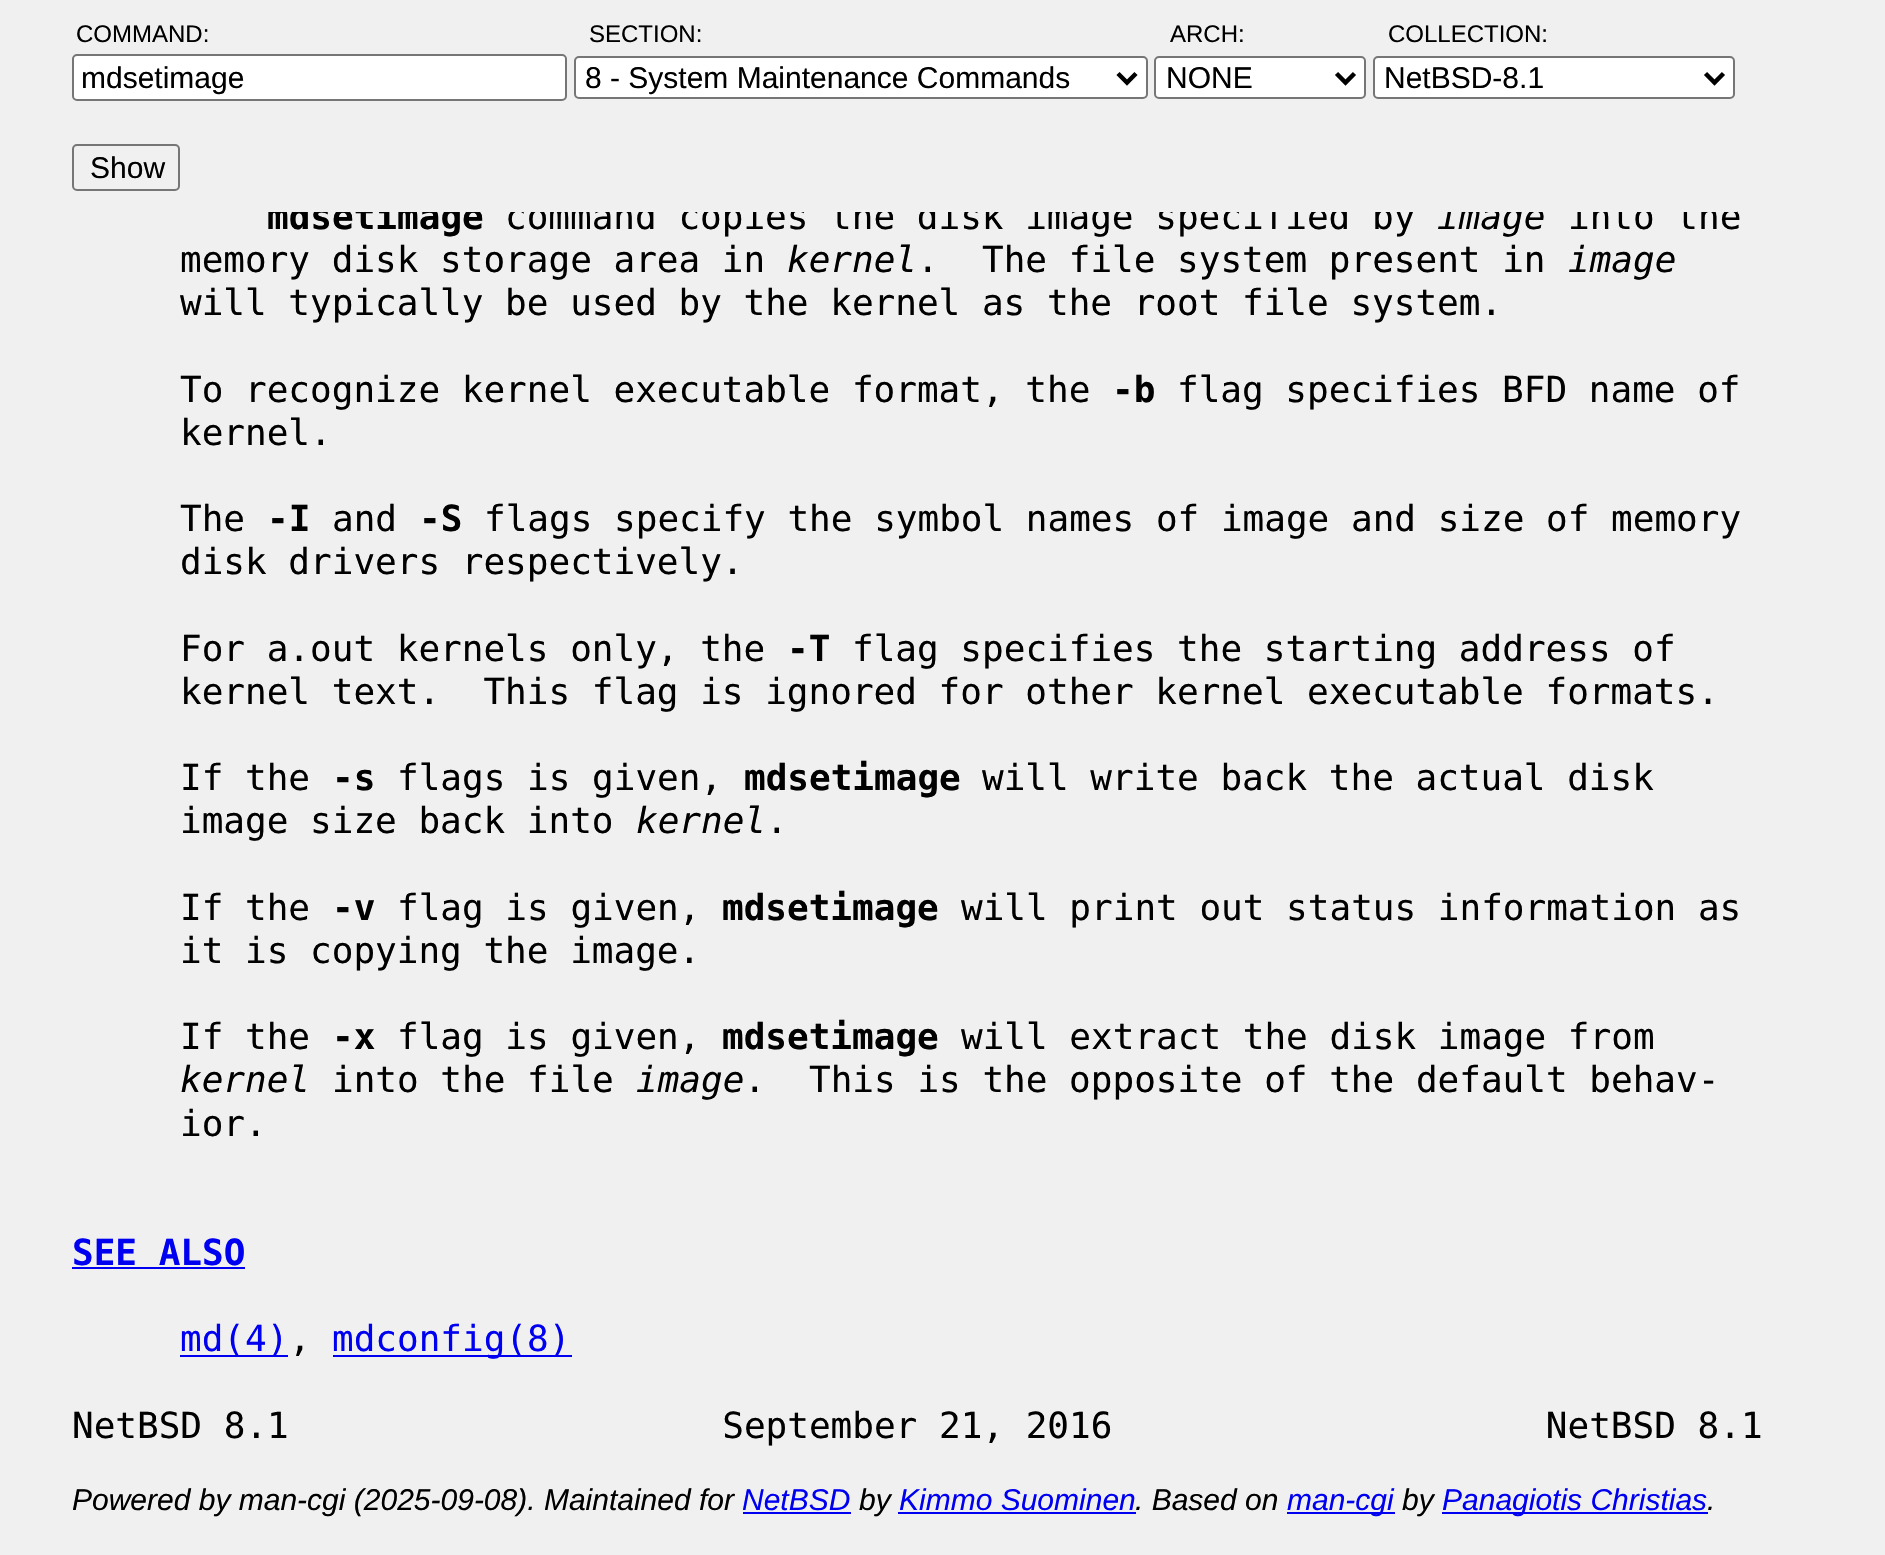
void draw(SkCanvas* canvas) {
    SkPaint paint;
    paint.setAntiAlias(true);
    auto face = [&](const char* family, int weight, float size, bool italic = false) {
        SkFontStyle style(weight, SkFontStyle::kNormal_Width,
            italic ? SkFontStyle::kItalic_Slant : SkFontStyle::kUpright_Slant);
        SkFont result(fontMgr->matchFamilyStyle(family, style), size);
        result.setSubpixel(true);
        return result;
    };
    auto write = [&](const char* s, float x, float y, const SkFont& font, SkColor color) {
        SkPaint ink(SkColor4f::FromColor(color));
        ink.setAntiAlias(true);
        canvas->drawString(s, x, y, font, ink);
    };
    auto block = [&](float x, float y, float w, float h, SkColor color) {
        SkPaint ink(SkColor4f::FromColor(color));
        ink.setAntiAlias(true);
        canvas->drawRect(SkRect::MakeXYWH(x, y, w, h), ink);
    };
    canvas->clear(SkColorSetRGB(240, 240, 240));
    auto kFont1 = face("DejaVu Sans Mono", 700, 36);
    write("mdsetimage", 267, 229, kFont1, SK_ColorBLACK);
    auto kFont2 = face("DejaVu Sans Mono", 400, 36);
    write("command copies the disk image specified by", 505, 229, kFont2, SK_ColorBLACK);
    auto kFont3 = face("DejaVu Sans Mono", 400, 36, true);
    write("image", 1437, 229, kFont3, SK_ColorBLACK);
    write("into the", 1568, 229, kFont2, SK_ColorBLACK);
    block(268, 199, 1469, 13, SkColorSetRGB(240, 240, 240));
    auto kFont4 = face("Liberation Sans", 400, 24);
    write("COMMAND:", 76, 42, kFont4, SK_ColorBLACK);
    paint.setColor(SK_ColorWHITE);
    canvas->drawRoundRect(SkRect::MakeXYWH(73, 55, 493, 45), 4, 4, paint);
    paint.setStyle(SkPaint::kStroke_Style);
    paint.setStrokeWidth(2);
    paint.setColor(SkColorSetRGB(118, 118, 118));
    canvas->drawRoundRect(SkRect::MakeXYWH(73, 55, 493, 45), 4, 4, paint);
    auto kFont5 = face("Liberation Sans", 400, 30);
    write("mdsetimage", 81, 88, kFont5, SK_ColorBLACK);
    write("SECTION:", 589, 42, kFont4, SK_ColorBLACK);
    paint.setStyle(SkPaint::kFill_Style);
    paint.setColor(SK_ColorWHITE);
    canvas->drawRoundRect(SkRect::MakeXYWH(575, 57, 572, 41), 4, 4, paint);
    paint.setStyle(SkPaint::kStroke_Style);
    paint.setColor(SkColorSetRGB(118, 118, 118));
    canvas->drawRoundRect(SkRect::MakeXYWH(575, 57, 572, 41), 4, 4, paint);
    paint.setStrokeWidth(4.5f);
    paint.setColor(SK_ColorBLACK);
    canvas->drawPath(SkPathBuilder().moveTo(1118, 73.5f).lineTo(1127, 82.5f).lineTo(1136, 73.5f).detach(), paint);
    write("8 - System Maintenance Commands", 585, 88, kFont5, SK_ColorBLACK);
    write("ARCH:", 1170, 42, kFont4, SK_ColorBLACK);
    paint.setStyle(SkPaint::kFill_Style);
    paint.setColor(SK_ColorWHITE);
    canvas->drawRoundRect(SkRect::MakeXYWH(1155, 57, 210, 41), 4, 4, paint);
    paint.setStyle(SkPaint::kStroke_Style);
    paint.setStrokeWidth(2);
    paint.setColor(SkColorSetRGB(118, 118, 118));
    canvas->drawRoundRect(SkRect::MakeXYWH(1155, 57, 210, 41), 4, 4, paint);
    paint.setStrokeWidth(4.5f);
    paint.setColor(SK_ColorBLACK);
    canvas->drawPath(SkPathBuilder().moveTo(1336.5f, 73.5f).lineTo(1345.5f, 82.5f).lineTo(1354.5f, 73.5f).detach(), paint);
    write("NONE", 1166, 88, kFont5, SK_ColorBLACK);
    write("COLLECTION:", 1388, 42, kFont4, SK_ColorBLACK);
    paint.setStyle(SkPaint::kFill_Style);
    paint.setColor(SK_ColorWHITE);
    canvas->drawRoundRect(SkRect::MakeXYWH(1374, 57, 360, 41), 4, 4, paint);
    paint.setStyle(SkPaint::kStroke_Style);
    paint.setStrokeWidth(2);
    paint.setColor(SkColorSetRGB(118, 118, 118));
    canvas->drawRoundRect(SkRect::MakeXYWH(1374, 57, 360, 41), 4, 4, paint);
    paint.setStrokeWidth(4.5f);
    paint.setColor(SK_ColorBLACK);
    canvas->drawPath(SkPathBuilder().moveTo(1705.5f, 73.5f).lineTo(1714.5f, 82.5f).lineTo(1723.5f, 73.5f).detach(), paint);
    write("NetBSD-8.1", 1384, 88, kFont5, SK_ColorBLACK);
    paint.setStrokeWidth(2);
    paint.setColor(SkColorSetRGB(118, 118, 118));
    canvas->drawRoundRect(SkRect::MakeXYWH(73, 145, 106, 45), 4, 4, paint);
    write("Show", 90, 178, kFont5, SK_ColorBLACK);
    write("memory disk storage area in", 180, 272, kFont2, SK_ColorBLACK);
    write("kernel", 787, 272, kFont3, SK_ColorBLACK);
    write(".  The file system present in", 917, 272, kFont2, SK_ColorBLACK);
    write("image", 1568, 272, kFont3, SK_ColorBLACK);
    write("will typically be used by the kernel as the root file system.", 180, 315, kFont2, SK_ColorBLACK);
    write("To recognize kernel executable format, the", 180, 402, kFont2, SK_ColorBLACK);
    write("-b", 1112, 402, kFont1, SK_ColorBLACK);
    write("flag specifies BFD name of", 1177, 402, kFont2, SK_ColorBLACK);
    write("kernel.", 180, 445, kFont2, SK_ColorBLACK);
    write("The", 180, 531, kFont2, SK_ColorBLACK);
    write("-I", 267, 531, kFont1, SK_ColorBLACK);
    write("and", 332, 531, kFont2, SK_ColorBLACK);
    write("-S", 419, 531, kFont1, SK_ColorBLACK);
    write("flags specify the symbol names of image and size of memory", 484, 531, kFont2, SK_ColorBLACK);
    write("disk drivers respectively.", 180, 574, kFont2, SK_ColorBLACK);
    write("For a.out kernels only, the", 180, 661, kFont2, SK_ColorBLACK);
    write("-T", 787, 661, kFont1, SK_ColorBLACK);
    write("flag specifies the starting address of", 852, 661, kFont2, SK_ColorBLACK);
    write("kernel text.  This flag is ignored for other kernel executable formats.", 180, 704, kFont2, SK_ColorBLACK);
    write("If the", 180, 790, kFont2, SK_ColorBLACK);
    write("-s", 332, 790, kFont1, SK_ColorBLACK);
    write("flags is given,", 397, 790, kFont2, SK_ColorBLACK);
    write("mdsetimage", 744, 790, kFont1, SK_ColorBLACK);
    write("will write back the actual disk", 982, 790, kFont2, SK_ColorBLACK);
    write("image size back into", 180, 833, kFont2, SK_ColorBLACK);
    write("kernel", 636, 833, kFont3, SK_ColorBLACK);
    write(".", 766, 833, kFont2, SK_ColorBLACK);
    write("If the", 180, 920, kFont2, SK_ColorBLACK);
    write("-v", 332, 920, kFont1, SK_ColorBLACK);
    write("flag is given,", 397, 920, kFont2, SK_ColorBLACK);
    write("mdsetimage", 722, 920, kFont1, SK_ColorBLACK);
    write("will print out status information as", 961, 920, kFont2, SK_ColorBLACK);
    write("it is copying the image.", 180, 963, kFont2, SK_ColorBLACK);
    write("If the", 180, 1049, kFont2, SK_ColorBLACK);
    write("-x", 332, 1049, kFont1, SK_ColorBLACK);
    write("flag is given,", 397, 1049, kFont2, SK_ColorBLACK);
    write("mdsetimage", 722, 1049, kFont1, SK_ColorBLACK);
    write("will extract the disk image from", 961, 1049, kFont2, SK_ColorBLACK);
    write("kernel", 180, 1092, kFont3, SK_ColorBLACK);
    write("into the file", 332, 1092, kFont2, SK_ColorBLACK);
    write("image", 636, 1092, kFont3, SK_ColorBLACK);
    write(".  This is the opposite of the default behav-", 744, 1092, kFont2, SK_ColorBLACK);
    write("ior.", 180, 1136, kFont2, SK_ColorBLACK);
    write("SEE ALSO", 72, 1265, kFont1, SkColorSetRGB(0, 0, 240));
    block(72, 1267, 173, 2, SkColorSetRGB(0, 0, 240));
    block(180, 1355, 108, 2, SkColorSetRGB(0, 0, 240));
    write("md(4)", 180, 1351, kFont2, SkColorSetRGB(0, 0, 240));
    write(",", 289, 1351, kFont2, SK_ColorBLACK);
    block(333, 1355, 239, 2, SkColorSetRGB(0, 0, 240));
    write("mdconfig(8)", 332, 1351, kFont2, SkColorSetRGB(0, 0, 240));
    write("NetBSD 8.1                    September 21, 2016                    NetBSD 8.1", 72, 1438, kFont2, SK_ColorBLACK);
    auto kFont6 = face("Liberation Sans", 400, 30, true);
    write("Powered by man-cgi (2025-09-08). Maintained for", 72, 1510, kFont6, SK_ColorBLACK);
    write("NetBSD", 742, 1510, kFont6, SkColorSetRGB(0, 0, 240));
    block(743, 1512, 108, 2, SkColorSetRGB(0, 0, 240));
    write("by", 859, 1510, kFont6, SK_ColorBLACK);
    write("Kimmo Suominen", 899, 1510, kFont6, SkColorSetRGB(0, 0, 240));
    block(898, 1512, 238, 2, SkColorSetRGB(0, 0, 240));
    write(". Based on", 1135, 1510, kFont6, SK_ColorBLACK);
    block(1287, 1512, 108, 2, SkColorSetRGB(0, 0, 240));
    write("man-cgi", 1287, 1510, kFont6, SkColorSetRGB(0, 0, 240));
    write("by", 1402, 1510, kFont6, SK_ColorBLACK);
    block(1442, 1512, 266, 2, SkColorSetRGB(0, 0, 240));
    write("Panagiotis Christias", 1442, 1510, kFont6, SkColorSetRGB(0, 0, 240));
    write(".", 1707, 1510, kFont6, SK_ColorBLACK);
}
